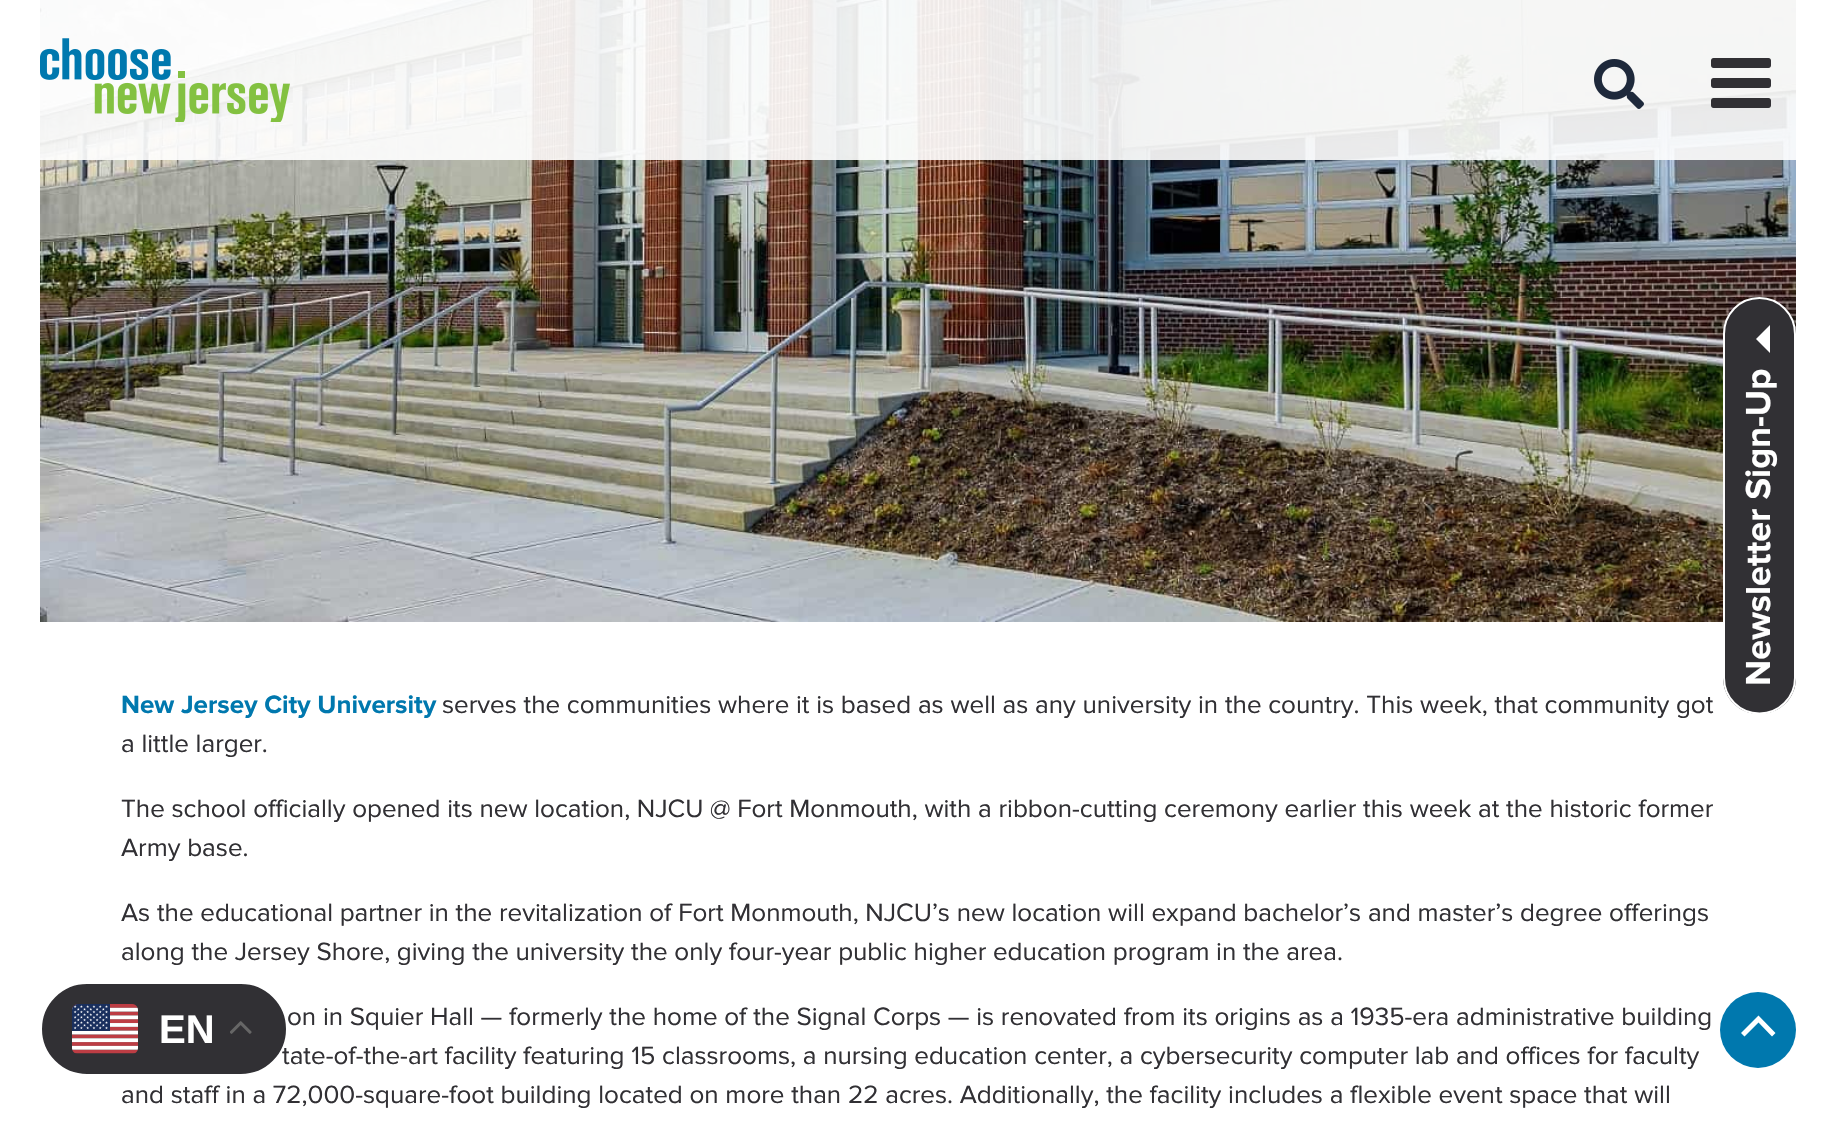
void draw(SkCanvas* canvas) {
    SkPaint paint;
    paint.setAntiAlias(true);
    auto face = [&](const char* family, int weight, float size, bool italic = false) {
        SkFontStyle style(weight, SkFontStyle::kNormal_Width,
            italic ? SkFontStyle::kItalic_Slant : SkFontStyle::kUpright_Slant);
        SkFont result(fontMgr->matchFamilyStyle(family, style), size);
        result.setSubpixel(true);
        return result;
    };
    auto write = [&](const char* s, float x, float y, const SkFont& font, SkColor color) {
        SkPaint ink(SkColor4f::FromColor(color));
        ink.setAntiAlias(true);
        canvas->drawString(s, x, y, font, ink);
    };
    auto block = [&](float x, float y, float w, float h, SkColor color) {
        SkPaint ink(SkColor4f::FromColor(color));
        ink.setAntiAlias(true);
        canvas->drawRect(SkRect::MakeXYWH(x, y, w, h), ink);
    };
    auto paste = [&](const char* path, float x, float y, float w, float h) {
        auto image = SkImages::DeferredFromEncodedData(SkData::MakeFromFileName(path));
        canvas->drawImageRect(image, SkRect::MakeXYWH(x, y, w, h), SkSamplingOptions());
    };
    canvas->clear(SK_ColorWHITE);
    paste("pic4.png", 40, 0, 1756, 622);
    paint.setColor(SkColorSetRGB(49, 48, 52));
    canvas->drawPath(SkPathBuilder().moveTo(1723, 678).lineTo(1723, 334).cubicTo(1723, 314, 1739, 297, 1759, 297).cubicTo(1780, 297, 1796, 314, 1796, 334).lineTo(1796, 678).cubicTo(1796, 698, 1780, 714, 1759, 714).cubicTo(1739, 714, 1723, 698, 1723, 678).close().detach(), paint);
    paint.setStyle(SkPaint::kStroke_Style);
    paint.setStrokeWidth(2);
    paint.setColor(SK_ColorWHITE);
    canvas->drawPath(SkPathBuilder().moveTo(1724, 678).lineTo(1724, 334).cubicTo(1724, 314, 1739.5f, 298, 1759.5f, 298).cubicTo(1779, 298, 1795, 314, 1795, 334).lineTo(1795, 678).cubicTo(1795, 697.5f, 1779, 713.5f, 1759.5f, 713.5f).cubicTo(1739.5f, 713.5f, 1724, 697.5f, 1724, 678).close().detach(), paint);
    paint.setStyle(SkPaint::kFill_Style);
    canvas->drawPath(SkPathBuilder().moveTo(1770, 325).lineTo(1770, 353).lineTo(1756, 339).close().detach(), paint);
    auto kFont1 = face("Proxima Nova", 700, 36);
    canvas->save();
    canvas->rotate(-90, 1770, 686);
    write("Newsletter Sign-Up", 1770, 686, kFont1, SK_ColorWHITE);
    canvas->restore();
    block(40, 0, 1756, 160, SkColorSetARGB(230, 255, 255, 255));
    paste("pic1.png", 40, 38, 250, 84);
    paste("pic2.png", 1594, 59, 50, 50);
    paste("pic3.png", 1711, 58, 60, 50);
    auto kFont2 = face("Proxima Nova", 700, 26);
    write("New Jersey City University", 121, 713, kFont2, SkColorSetRGB(0, 120, 174));
    auto kFont3 = face("Proxima Nova", 400, 26);
    write("serves the communities where it is based as well as any university in the country. This week, that community got", 442, 713, kFont3, SkColorSetRGB(49, 48, 52));
    write("a little larger.", 121, 752, kFont3, SkColorSetRGB(49, 48, 52));
    write("The school officially opened its new location, NJCU @ Fort Monmouth, with a ribbon-cutting ceremony earlier this week at the historic former", 121, 817, kFont3, SkColorSetRGB(49, 48, 52));
    write("Army base.", 121, 856, kFont3, SkColorSetRGB(49, 48, 52));
    write("As the educational partner in the revitalization of Fort Monmouth, NJCU’s new location will expand bachelor’s and master’s degree offerings", 121, 921, kFont3, SkColorSetRGB(49, 48, 52));
    write("along the Jersey Shore, giving the university the only four-year public higher education program in the area.", 121, 960, kFont3, SkColorSetRGB(49, 48, 52));
    write("on in Squier Hall — formerly the home of the Signal Corps — is renovated from its origins as a 1935-era administrative building", 287, 1025, kFont3, SkColorSetRGB(49, 48, 52));
    write("tate-of-the-art facility featuring 15 classrooms, a nursing education center, a cybersecurity computer lab and offices for faculty", 282, 1064, kFont3, SkColorSetRGB(49, 48, 52));
    write("and staff in a 72,000-square-foot building located on more than 22 acres. Additionally, the facility includes a flexible event space that will", 121, 1103, kFont3, SkColorSetRGB(49, 48, 52));
    paint.setColor(SkColorSetRGB(0, 120, 174));
    canvas->drawCircle(1758, 1030, 38, paint);
    paint.setColor(SK_ColorWHITE);
    canvas->drawPath(SkPathBuilder().moveTo(1775.5f, 1033).lineTo(1758.5f, 1015.5f).lineTo(1741, 1033).lineTo(1744.5f, 1036.5f).lineTo(1758.5f, 1022.5f).lineTo(1772, 1036.5f).close().detach(), paint);
    paint.setColor(SkColorSetRGB(49, 48, 52));
    canvas->drawRoundRect(SkRect::MakeXYWH(41, 983, 246, 92), 46, 46, paint);
    paint.setStyle(SkPaint::kStroke_Style);
    paint.setColor(SK_ColorWHITE);
    canvas->drawRoundRect(SkRect::MakeXYWH(41, 983, 246, 92), 46, 46, paint);
    paste("pic5.png", 72, 1004, 66, 50);
    auto kFont4 = face("Liberation Sans", 700, 40);
    write("EN", 159, 1043, kFont4, SK_ColorWHITE);
    paste("pic6.png", 230, 1021, 22, 13);
}
